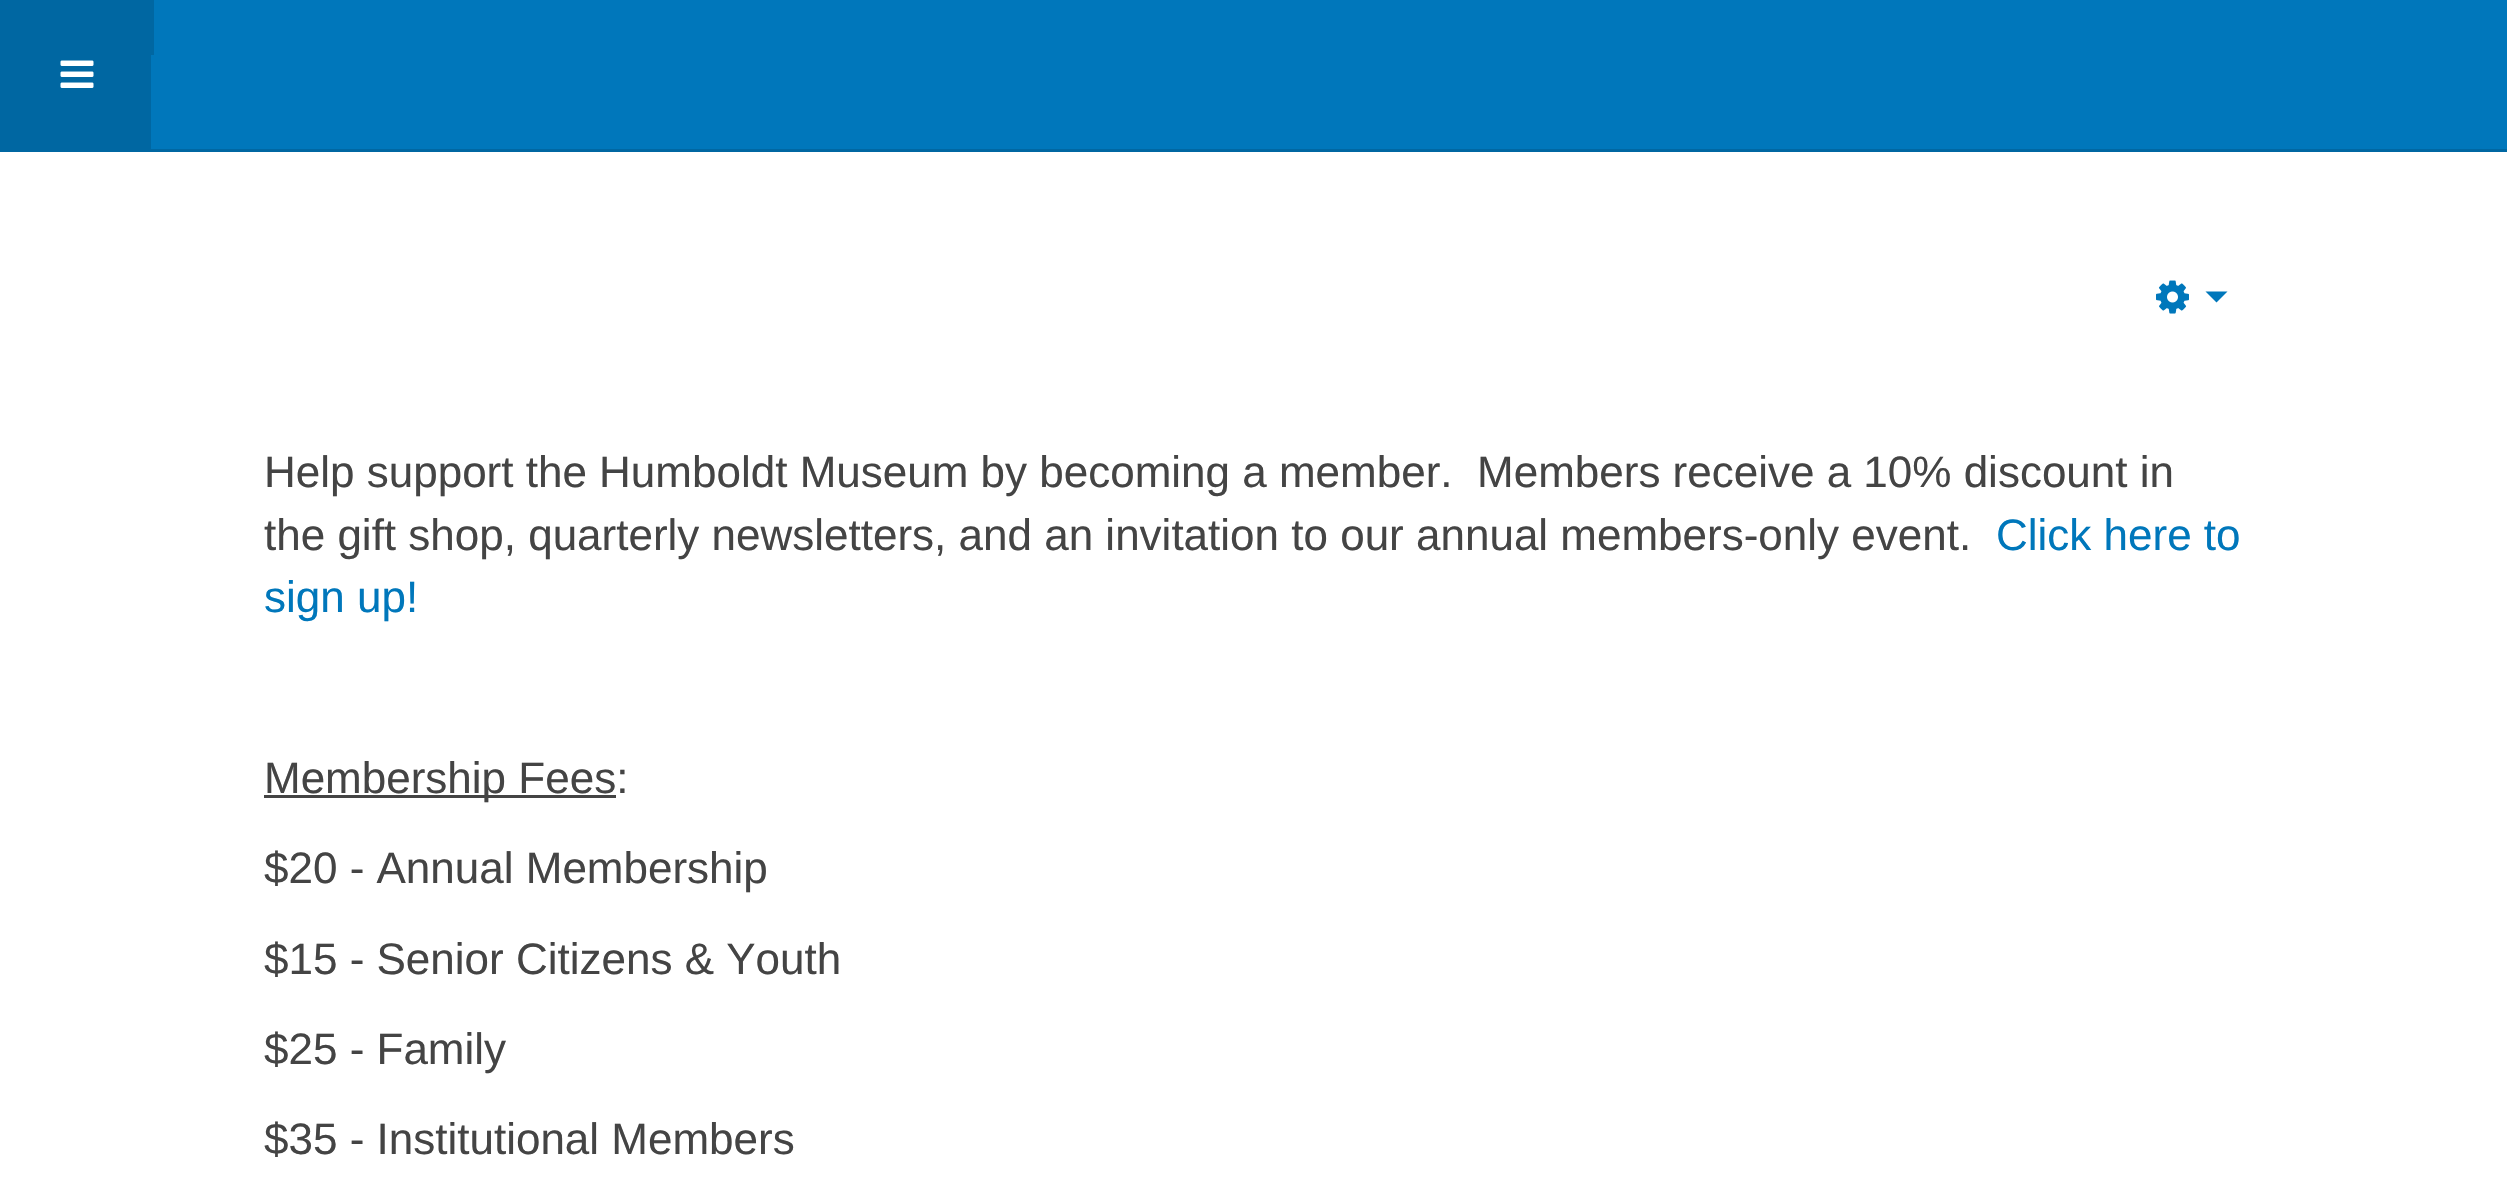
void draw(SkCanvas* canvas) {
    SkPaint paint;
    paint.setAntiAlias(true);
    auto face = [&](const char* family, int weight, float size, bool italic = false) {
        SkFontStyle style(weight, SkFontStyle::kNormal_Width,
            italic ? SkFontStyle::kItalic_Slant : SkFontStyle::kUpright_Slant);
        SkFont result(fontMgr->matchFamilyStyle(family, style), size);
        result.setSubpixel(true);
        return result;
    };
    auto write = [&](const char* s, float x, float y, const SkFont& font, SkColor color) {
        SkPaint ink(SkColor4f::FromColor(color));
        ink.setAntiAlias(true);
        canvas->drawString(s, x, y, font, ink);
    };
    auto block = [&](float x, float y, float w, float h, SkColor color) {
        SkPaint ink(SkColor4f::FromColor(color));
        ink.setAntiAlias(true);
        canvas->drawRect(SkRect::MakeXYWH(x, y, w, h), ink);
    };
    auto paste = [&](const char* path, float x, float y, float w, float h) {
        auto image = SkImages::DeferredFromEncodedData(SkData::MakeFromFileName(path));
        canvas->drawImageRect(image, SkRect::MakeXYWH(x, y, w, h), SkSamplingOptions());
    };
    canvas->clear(SK_ColorWHITE);
    block(151, 0, 2356, 149, SkColorSetRGB(0, 119, 187));
    block(0, 149, 2507, 3, SkColorSetRGB(0, 103, 162));
    block(0, 0, 151, 149, SkColorSetRGB(0, 103, 162));
    paste("pic1.png", 60, 60, 34, 28);
    block(151, 0, 3, 55, SkColorSetRGB(0, 103, 162));
    paste("pic2.png", 2156, 280, 33, 34);
    paint.setColor(SkColorSetRGB(0, 119, 187));
    canvas->drawPath(SkPathBuilder().moveTo(2205.5f, 291.5f).lineTo(2227.5f, 291.5f).lineTo(2216.5f, 302.5f).close().detach(), paint);
    auto kFont1 = face("Liberation Sans", 400, 44);
    write("Help support the Humboldt Museum by becoming a member.  Members receive a 10% discount in", 264, 487, kFont1, SkColorSetRGB(68, 68, 68));
    write("the gift shop, quarterly newsletters, and an invitation to our annual members-only event.", 264, 550, kFont1, SkColorSetRGB(68, 68, 68));
    write("Click here to", 1996, 550, kFont1, SkColorSetRGB(0, 119, 187));
    write("sign up!", 264, 612, kFont1, SkColorSetRGB(0, 119, 187));
    block(264, 795, 352, 3, SkColorSetRGB(68, 68, 68));
    write("Membership Fees:", 264, 793, kFont1, SkColorSetRGB(68, 68, 68));
    write("$20 - Annual Membership", 264, 883, kFont1, SkColorSetRGB(68, 68, 68));
    write("$15 - Senior Citizens & Youth", 264, 974, kFont1, SkColorSetRGB(68, 68, 68));
    write("$25 - Family", 264, 1064, kFont1, SkColorSetRGB(68, 68, 68));
    write("$35 - Institutional Members", 264, 1154, kFont1, SkColorSetRGB(68, 68, 68));
}
